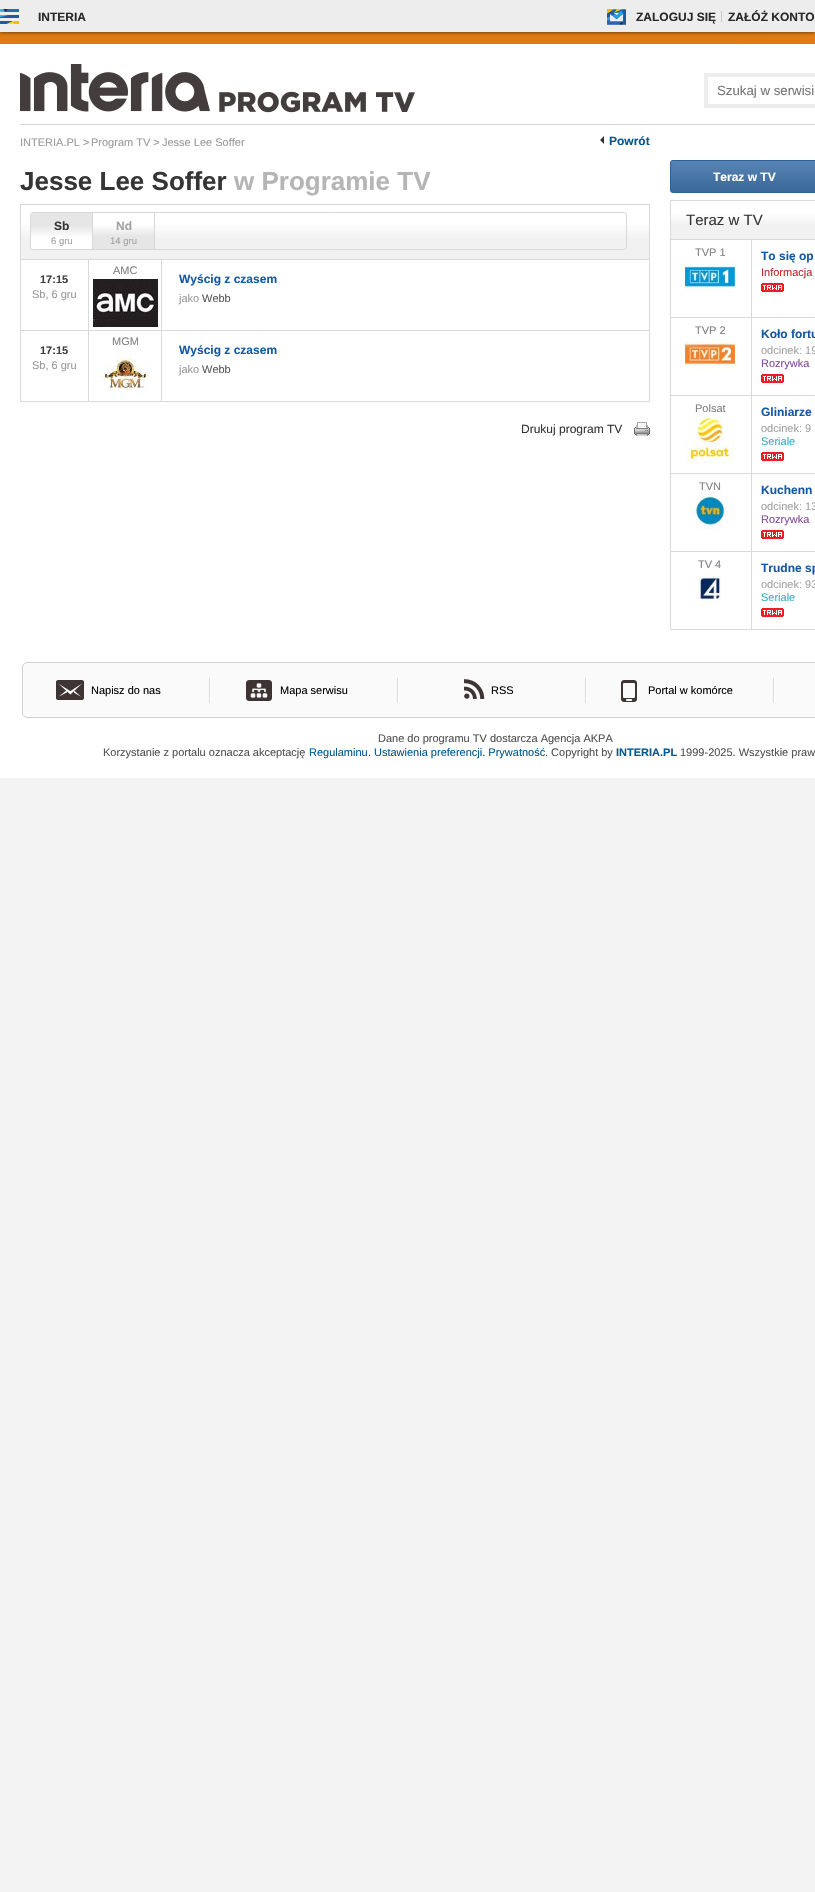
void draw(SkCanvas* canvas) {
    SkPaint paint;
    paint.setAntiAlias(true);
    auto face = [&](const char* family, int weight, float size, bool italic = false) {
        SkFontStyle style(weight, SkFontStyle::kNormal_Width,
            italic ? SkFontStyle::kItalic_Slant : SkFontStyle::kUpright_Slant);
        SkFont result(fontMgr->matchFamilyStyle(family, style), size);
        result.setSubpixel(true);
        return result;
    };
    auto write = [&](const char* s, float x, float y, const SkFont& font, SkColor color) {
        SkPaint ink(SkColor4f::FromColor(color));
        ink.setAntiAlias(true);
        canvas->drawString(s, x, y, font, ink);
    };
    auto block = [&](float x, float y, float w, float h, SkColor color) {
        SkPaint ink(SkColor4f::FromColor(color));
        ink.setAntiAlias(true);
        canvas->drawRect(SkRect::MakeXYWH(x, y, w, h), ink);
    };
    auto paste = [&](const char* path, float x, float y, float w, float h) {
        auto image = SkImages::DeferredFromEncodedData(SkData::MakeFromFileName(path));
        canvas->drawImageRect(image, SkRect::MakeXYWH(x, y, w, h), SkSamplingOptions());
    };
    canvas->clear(SkColorSetRGB(243, 243, 243));
    paste("pic1.png", 0, 32, 815, 12);
    paint.setColor(SkColorSetARGB(179, 0, 0, 0));
    paint.setMaskFilter(SkMaskFilter::MakeBlur(kNormal_SkBlurStyle, 2));
    canvas->drawRect(SkRect::MakeXYWH(0, 0, 815, 32), paint);
    paint.setMaskFilter(nullptr);
    block(0, 0, 815, 32, SkColorSetRGB(237, 237, 237));
    paste("pic2.png", 0, 9, 19, 15);
    auto kFont1 = face("Liberation Sans", 700, 12);
    write("INTERIA", 38, 21, kFont1, SkColorSetRGB(40, 40, 40));
    paste("pic3.png", 607, 9, 19, 16);
    write("ZALOGUJ SIĘ", 636, 21, kFont1, SkColorSetRGB(40, 40, 40));
    block(721, 11, 1, 11, SkColorSetRGB(197, 199, 205));
    write("ZAŁÓŻ KONTO", 728, 21, kFont1, SkColorSetRGB(40, 40, 40));
    block(0, 44, 815, 734, SK_ColorWHITE);
    block(20, 124, 795, 1, SkColorSetRGB(216, 216, 216));
    paste("pic4.png", 20, 64, 190, 48);
    paste("pic5.png", 219, 91, 196, 22);
    paint.setStyle(SkPaint::kStroke_Style);
    paint.setStrokeWidth(4);
    paint.setColor(SkColorSetRGB(237, 237, 237));
    canvas->drawRect(SkRect::MakeXYWH(706, 75, 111, 31), paint);
    auto kFont2 = face("Liberation Sans", 400, 13.25f);
    write("Szukaj w serwisi", 717, 95, kFont2, SkColorSetRGB(117, 117, 117));
    paste("pic6.png", 600, 136, 4, 8);
    write("Powrót", 609, 145, kFont1, SkColorSetRGB(0, 89, 146));
    auto kFont3 = face("Liberation Sans", 700, 26);
    write("Jesse Lee Soffer", 20, 190, kFont3, SkColorSetRGB(53, 53, 53));
    write("w Programie TV", 234, 190, kFont3, SkColorSetRGB(181, 181, 181));
    paint.setStyle(SkPaint::kFill_Style);
    {
        const SkColor colors[] = {SkColorSetRGB(241, 241, 241), SK_ColorWHITE, SK_ColorWHITE};
        const float stops[] = {0.35f, 0.7f, 0.84f};
        const SkPoint ends[] = {{21, 259}, {21, 205}};
        paint.setShader(SkGradientShader::MakeLinear(ends, colors, stops, 3, SkTileMode::kClamp));
        paint.setAlpha(255);
    }
    canvas->drawRect(SkRect::MakeXYWH(21, 225, 628, 34), paint);
    block(20, 204, 630, 1, SkColorSetRGB(216, 216, 216));
    block(649, 204, 1, 55, SkColorSetRGB(216, 216, 216));
    block(20, 204, 1, 55, SkColorSetRGB(216, 216, 216));
    paint.setStyle(SkPaint::kStroke_Style);
    paint.setStrokeWidth(1);
    paint.setShader(nullptr);
    paint.setColor(SkColorSetRGB(216, 216, 216));
    canvas->drawRoundRect(SkRect::MakeXYWH(30.5f, 212.5f, 596, 37), 2.5f, 2.5f, paint);
    block(92, 213, 1, 36, SkColorSetRGB(216, 216, 216));
    paint.setStyle(SkPaint::kFill_Style);
    {
        const SkColor colors[] = {SkColorSetRGB(230, 230, 230), SK_ColorWHITE, SK_ColorWHITE};
        const float stops[] = {0.35f, 0.7f, 0.84f};
        const SkPoint ends[] = {{62, 213}, {62, 249}};
        paint.setShader(SkGradientShader::MakeLinear(ends, colors, stops, 3, SkTileMode::kClamp));
        paint.setAlpha(255);
    }
    canvas->drawPath(SkPathBuilder().moveTo(33, 213).lineTo(92, 213).lineTo(92, 249).lineTo(33, 249).cubicTo(32, 249, 31, 248, 31, 247).lineTo(31, 215).cubicTo(31, 214, 32, 213, 33, 213).close().detach(), paint);
    write("Sb", 54, 230, kFont1, SkColorSetRGB(53, 53, 53));
    auto kFont4 = face("Liberation Sans", 400, 9.5f);
    write("6 gru", 51, 244, kFont4, SkColorSetRGB(163, 163, 163));
    {
        const SkColor colors[] = {SkColorSetRGB(230, 230, 230), SK_ColorWHITE, SK_ColorWHITE};
        const float stops[] = {0.35f, 0.7f, 0.84f};
        const SkPoint ends[] = {{93, 249}, {93, 213}};
        paint.setShader(SkGradientShader::MakeLinear(ends, colors, stops, 3, SkTileMode::kClamp));
        paint.setAlpha(255);
    }
    canvas->drawRect(SkRect::MakeXYWH(93, 228, 61, 21), paint);
    block(154, 213, 1, 36, SkColorSetRGB(216, 216, 216));
    write("Nd", 116, 230, kFont1, SkColorSetRGB(163, 163, 163));
    write("14 gru", 110, 244, kFont4, SkColorSetRGB(163, 163, 163));
    block(20, 259, 630, 1, SkColorSetRGB(217, 217, 217));
    block(649, 259, 1, 143, SkColorSetRGB(217, 217, 217));
    block(20, 259, 1, 143, SkColorSetRGB(217, 217, 217));
    block(21, 330, 628, 1, SkColorSetRGB(217, 217, 217));
    block(161, 260, 1, 70, SkColorSetRGB(217, 217, 217));
    block(88, 260, 1, 70, SkColorSetRGB(217, 217, 217));
    auto kFont5 = face("Liberation Sans", 400, 11);
    write("AMC", 113, 274, kFont5, SkColorSetRGB(127, 127, 127));
    paste("pic7.png", 93, 279, 65, 48);
    auto kFont6 = face("Liberation Sans", 700, 11);
    write("17:15", 40, 283, kFont6, SkColorSetRGB(63, 63, 63));
    write("Sb, 6 gru", 32, 298, kFont5, SkColorSetRGB(153, 153, 153));
    write("Wyścig z czasem", 179, 283, kFont1, SkColorSetRGB(20, 88, 164));
    write("jako", 179, 302, kFont5, SkColorSetRGB(153, 153, 153));
    write("Webb", 202, 302, kFont5, SkColorSetRGB(88, 88, 88));
    block(21, 401, 628, 1, SkColorSetRGB(217, 217, 217));
    block(161, 331, 1, 70, SkColorSetRGB(217, 217, 217));
    block(88, 331, 1, 70, SkColorSetRGB(217, 217, 217));
    write("MGM", 112, 345, kFont5, SkColorSetRGB(127, 127, 127));
    paste("pic8.png", 93, 358, 64, 40);
    write("17:15", 40, 354, kFont6, SkColorSetRGB(63, 63, 63));
    write("Sb, 6 gru", 32, 369, kFont5, SkColorSetRGB(153, 153, 153));
    write("Wyścig z czasem", 179, 354, kFont1, SkColorSetRGB(20, 88, 164));
    write("jako", 179, 373, kFont5, SkColorSetRGB(153, 153, 153));
    write("Webb", 202, 373, kFont5, SkColorSetRGB(88, 88, 88));
    auto kFont7 = face("Liberation Sans", 400, 12);
    write("Drukuj program TV", 521, 433, kFont7, SkColorSetRGB(53, 53, 53));
    paste("pic9.png", 634, 422, 16, 14);
    write("INTERIA.PL >", 20, 146, kFont5, SkColorSetRGB(153, 153, 153));
    write("Program TV >", 91, 146, kFont5, SkColorSetRGB(153, 153, 153));
    write("Jesse Lee Soffer", 162, 146, kFont5, SkColorSetRGB(153, 153, 153));
    paste("pic10.png", 670, 160, 145, 33);
    write("Teraz w TV", 713, 181, kFont1, SK_ColorWHITE);
    {
        const SkColor colors[] = {SkColorSetRGB(241, 241, 241), SK_ColorWHITE, SK_ColorWHITE};
        const float stops[] = {0.35f, 0.7f, 0.84f};
        const SkPoint ends[] = {{671, 239}, {671, 201}};
        paint.setShader(SkGradientShader::MakeLinear(ends, colors, stops, 3, SkTileMode::kClamp));
        paint.setAlpha(255);
    }
    canvas->drawRect(SkRect::MakeXYWH(671, 215, 144, 24), paint);
    block(670, 200, 145, 1, SkColorSetRGB(217, 217, 217));
    block(670, 200, 1, 39, SkColorSetRGB(217, 217, 217));
    auto kFont8 = face("Liberation Sans", 400, 15);
    write("Teraz w TV", 686, 225, kFont8, SkColorSetRGB(53, 53, 53));
    block(670, 239, 145, 1, SkColorSetRGB(217, 217, 217));
    block(670, 239, 1, 391, SkColorSetRGB(217, 217, 217));
    block(671, 317, 144, 1, SkColorSetRGB(217, 217, 217));
    write("TVP 1", 695, 256, kFont5, SkColorSetRGB(127, 127, 127));
    paste("pic11.png", 685, 264, 50, 31);
    block(751, 240, 1, 77, SkColorSetRGB(217, 217, 217));
    write("To się op", 761, 260, kFont1, SkColorSetRGB(20, 88, 164));
    write("Informacja", 761, 276, kFont5, SkColorSetRGB(190, 39, 44));
    paste("pic12.png", 761, 283, 23, 9);
    block(671, 395, 144, 1, SkColorSetRGB(217, 217, 217));
    write("TVP 2", 695, 334, kFont5, SkColorSetRGB(127, 127, 127));
    paste("pic13.png", 685, 336, 50, 34);
    block(751, 318, 1, 77, SkColorSetRGB(217, 217, 217));
    write("Koło fortu", 761, 338, kFont1, SkColorSetRGB(20, 88, 164));
    write("odcinek: 19", 761, 354, kFont5, SkColorSetRGB(163, 163, 163));
    write("Rozrywka", 761, 367, kFont5, SkColorSetRGB(133, 76, 157));
    paste("pic12.png", 761, 374, 23, 9);
    block(671, 473, 144, 1, SkColorSetRGB(217, 217, 217));
    write("Polsat", 695, 412, kFont5, SkColorSetRGB(127, 127, 127));
    paste("pic14.png", 685, 414, 50, 49);
    block(751, 396, 1, 77, SkColorSetRGB(217, 217, 217));
    write("Gliniarze", 761, 416, kFont1, SkColorSetRGB(20, 88, 164));
    write("odcinek: 9", 761, 432, kFont5, SkColorSetRGB(163, 163, 163));
    write("Seriale", 761, 445, kFont5, SkColorSetRGB(52, 173, 190));
    paste("pic12.png", 761, 452, 23, 9);
    block(671, 551, 144, 1, SkColorSetRGB(217, 217, 217));
    write("TVN", 699, 490, kFont5, SkColorSetRGB(127, 127, 127));
    paste("pic15.png", 685, 492, 50, 37);
    block(751, 474, 1, 77, SkColorSetRGB(217, 217, 217));
    write("Kuchenn", 761, 494, kFont1, SkColorSetRGB(20, 88, 164));
    write("odcinek: 13", 761, 510, kFont5, SkColorSetRGB(163, 163, 163));
    write("Rozrywka", 761, 523, kFont5, SkColorSetRGB(133, 76, 157));
    paste("pic12.png", 761, 530, 23, 9);
    block(671, 629, 144, 1, SkColorSetRGB(217, 217, 217));
    write("TV 4", 698, 568, kFont5, SkColorSetRGB(127, 127, 127));
    paste("pic16.png", 697, 573, 25, 34);
    block(751, 552, 1, 77, SkColorSetRGB(217, 217, 217));
    write("Trudne sp", 761, 572, kFont1, SkColorSetRGB(20, 88, 164));
    write("odcinek: 93", 761, 588, kFont5, SkColorSetRGB(163, 163, 163));
    write("Seriale", 761, 601, kFont5, SkColorSetRGB(52, 173, 190));
    paste("pic12.png", 761, 608, 23, 9);
    paint.setShader(nullptr);
    paint.setColor(SkColorSetRGB(250, 250, 250));
    canvas->drawRoundRect(SkRect::MakeXYWH(22.5f, 662.5f, 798, 55), 4.5f, 4.5f, paint);
    paint.setStyle(SkPaint::kStroke_Style);
    paint.setColor(SkColorSetRGB(209, 209, 209));
    canvas->drawRoundRect(SkRect::MakeXYWH(22.5f, 662.5f, 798, 55), 4.5f, 4.5f, paint);
    paste("pic17.png", 209, 678, 2, 25);
    paste("pic18.png", 56, 680, 28, 20);
    write("Napisz do nas", 91, 694, kFont5, SK_ColorBLACK);
    paste("pic17.png", 397, 678, 2, 25);
    paste("pic19.png", 246, 680, 26, 21);
    write("Mapa serwisu", 280, 694, kFont5, SK_ColorBLACK);
    paste("pic17.png", 585, 678, 2, 25);
    paste("pic20.png", 464, 679, 21, 20);
    write("RSS", 491, 694, kFont5, SK_ColorBLACK);
    paste("pic17.png", 773, 678, 2, 25);
    paste("pic21.png", 621, 680, 16, 22);
    write("Portal w komórce", 648, 694, kFont5, SK_ColorBLACK);
    write("Dane do programu TV dostarcza Agencja AKPA", 378, 742, kFont5, SkColorSetRGB(81, 81, 81));
    write("Korzystanie z portalu oznacza akceptację", 103, 756, kFont5, SkColorSetRGB(81, 81, 81));
    write("Regulaminu", 309, 756, kFont5, SkColorSetRGB(0, 89, 146));
    write(".", 368, 756, kFont5, SkColorSetRGB(81, 81, 81));
    write("Ustawienia preferencji. Prywatność", 374, 756, kFont5, SkColorSetRGB(0, 89, 146));
    write(". Copyright by", 545, 756, kFont5, SkColorSetRGB(81, 81, 81));
    write("INTERIA.PL", 616, 756, kFont6, SkColorSetRGB(0, 89, 146));
    write("1999-2025. Wszystkie praw", 680, 756, kFont5, SkColorSetRGB(81, 81, 81));
}
